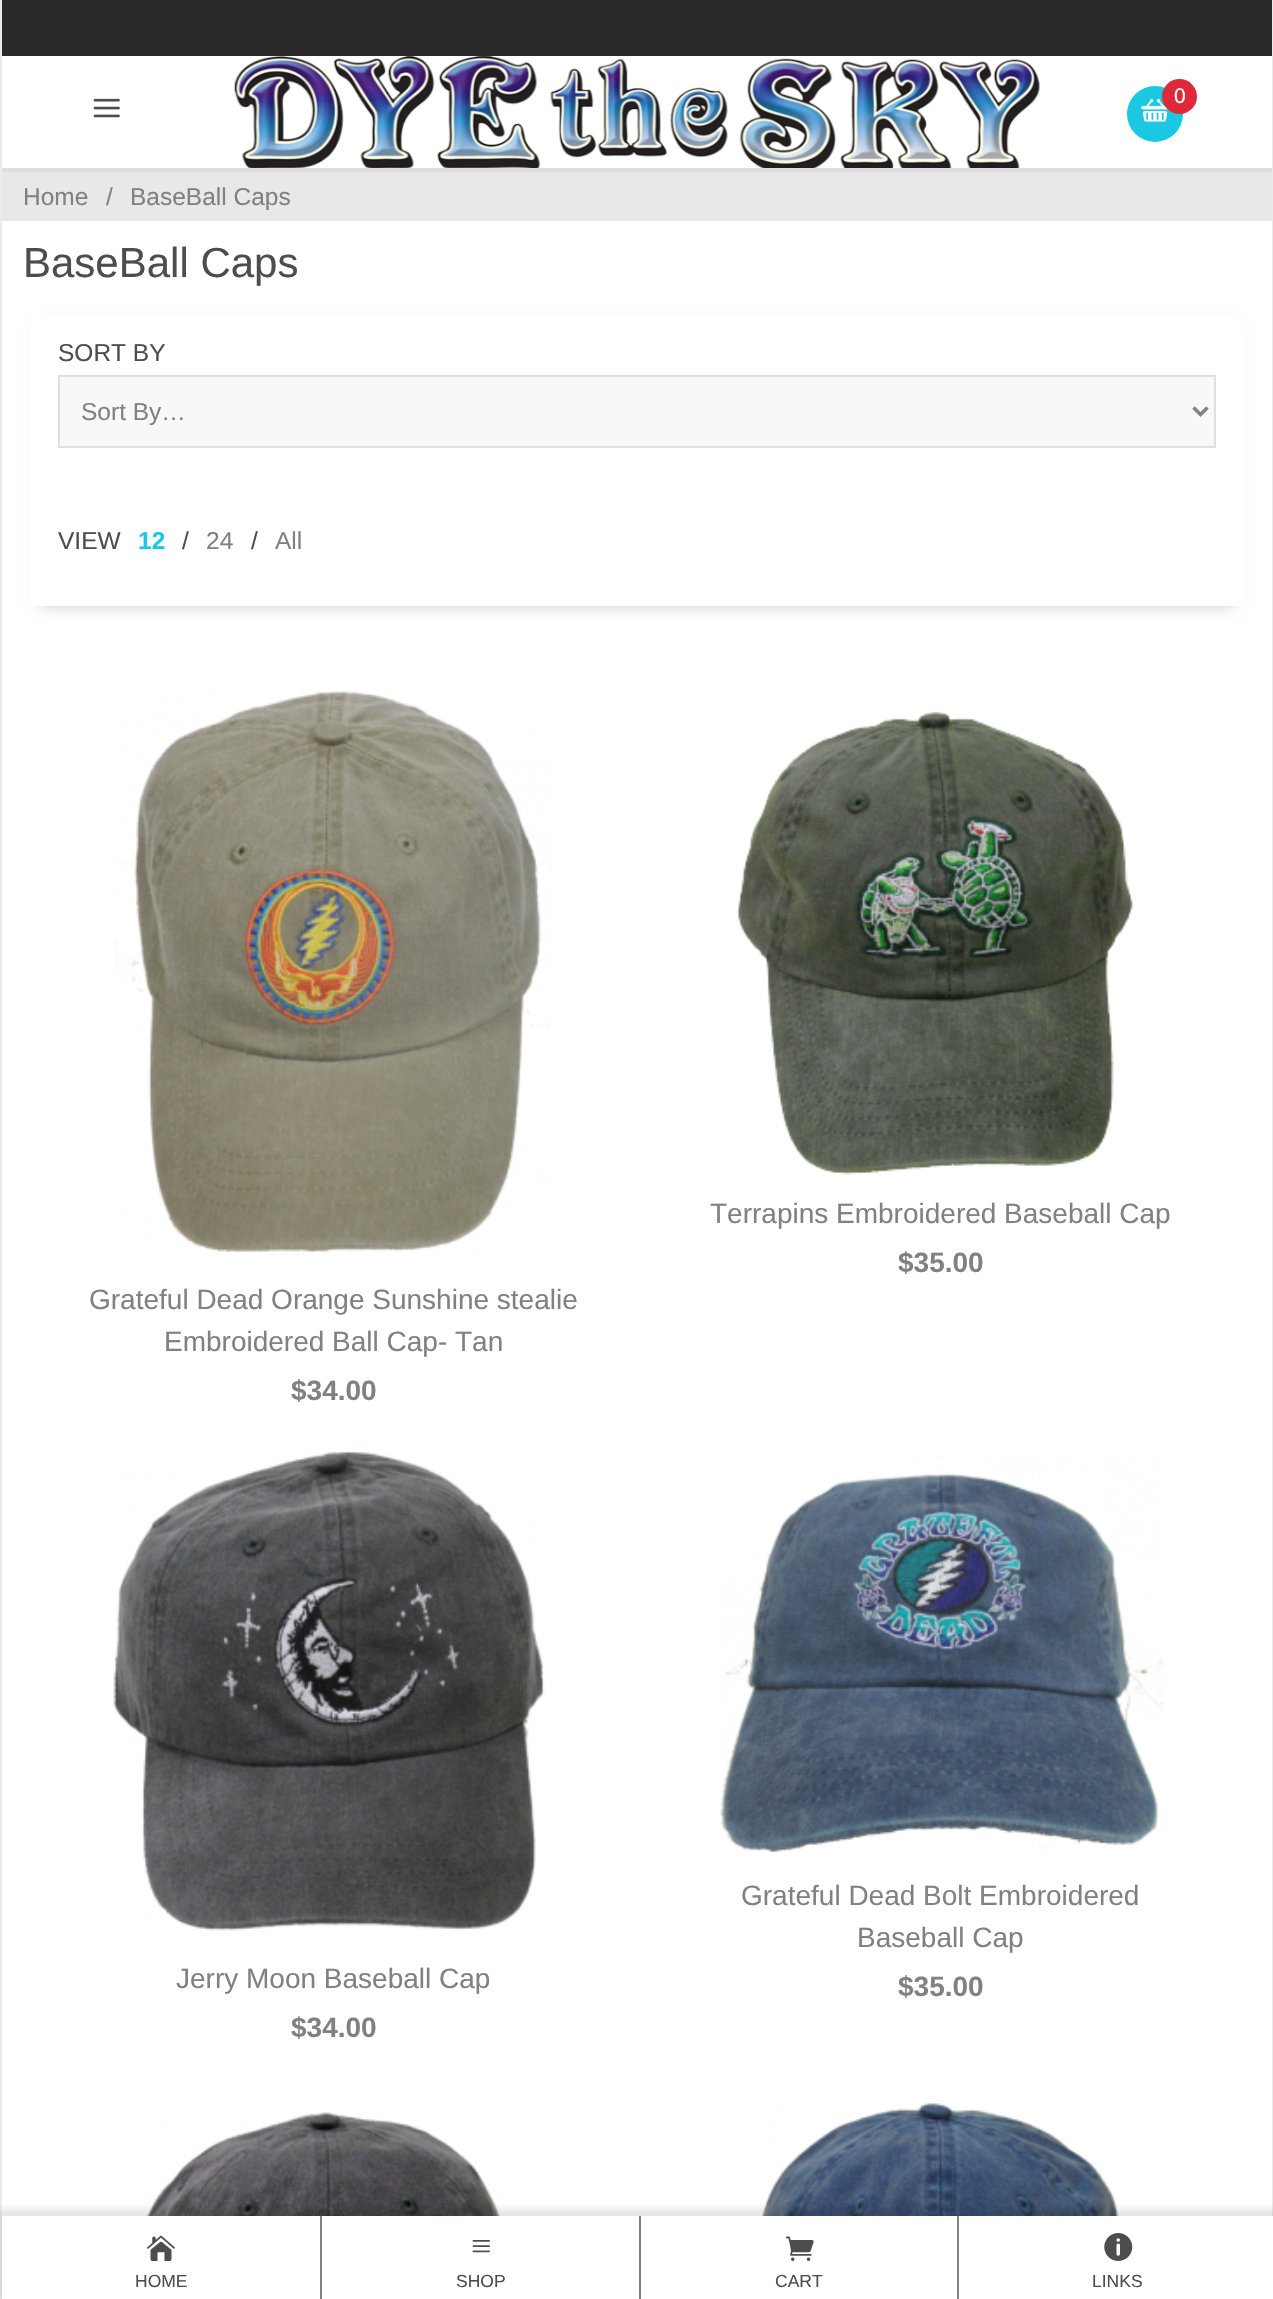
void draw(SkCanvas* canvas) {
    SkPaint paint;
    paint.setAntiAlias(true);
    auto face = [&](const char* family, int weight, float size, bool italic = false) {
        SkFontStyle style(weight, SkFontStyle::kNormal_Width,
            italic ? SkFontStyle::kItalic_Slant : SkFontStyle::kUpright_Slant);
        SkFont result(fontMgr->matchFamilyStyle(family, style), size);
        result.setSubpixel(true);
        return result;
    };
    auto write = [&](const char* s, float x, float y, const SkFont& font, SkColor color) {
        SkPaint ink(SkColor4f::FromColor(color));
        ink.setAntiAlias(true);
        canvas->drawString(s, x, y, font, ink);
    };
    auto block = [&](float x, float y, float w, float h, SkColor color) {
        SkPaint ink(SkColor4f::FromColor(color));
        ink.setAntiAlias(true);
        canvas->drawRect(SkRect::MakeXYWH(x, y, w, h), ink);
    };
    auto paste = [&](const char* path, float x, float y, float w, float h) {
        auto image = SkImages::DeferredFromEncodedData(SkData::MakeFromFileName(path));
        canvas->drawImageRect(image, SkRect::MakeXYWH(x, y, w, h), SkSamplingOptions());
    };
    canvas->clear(SK_ColorWHITE);
    block(1272, 0, 1, 2216, SkColorSetRGB(235, 235, 235));
    block(0, 0, 2, 2299, SkColorSetRGB(235, 235, 235));
    block(2, 0, 1270, 56, SkColorSetRGB(41, 41, 41));
    paste("pic1.png", 234, 56, 806, 112);
    paint.setColor(SkColorSetRGB(26, 200, 226));
    canvas->drawCircle(1155, 114, 28, paint);
    paste("pic2.png", 1141, 98, 27, 24);
    paint.setColor(SkColorSetRGB(221, 41, 58));
    canvas->drawCircle(1179.5f, 96.5f, 17.5f, paint);
    auto kFont1 = face("Liberation Sans", 400, 21);
    write("0", 1174, 103, kFont1, SK_ColorWHITE);
    paste("pic3.png", 93, 98, 27, 20);
    block(2, 168, 1270, 4, SkColorSetRGB(222, 222, 222));
    block(2, 172, 1270, 49, SkColorSetRGB(232, 232, 232));
    auto kFont2 = face("Liberation Sans", 400, 24.5f);
    write("Home", 23, 205, kFont2, SkColorSetRGB(129, 129, 129));
    write("/", 106, 205, kFont2, SkColorSetRGB(129, 129, 129));
    write("BaseBall Caps", 130, 205, kFont2, SkColorSetRGB(129, 129, 129));
    auto kFont3 = face("Liberation Sans", 400, 42);
    write("BaseBall Caps", 23, 277, kFont3, SkColorSetRGB(77, 77, 77));
    paint.setColor(SkColorSetARGB(51, 0, 0, 0));
    paint.setMaskFilter(SkMaskFilter::MakeBlur(kNormal_SkBlurStyle, 7));
    canvas->drawRect(SkRect::MakeXYWH(40, 326, 1194, 280), paint);
    paint.setMaskFilter(nullptr);
    block(30, 315, 1214, 291, SK_ColorWHITE);
    write("SORT BY", 58, 361, kFont2, SkColorSetRGB(77, 77, 77));
    paint.setColor(SkColorSetRGB(248, 248, 248));
    canvas->drawRect(SkRect::MakeXYWH(59, 376, 1156, 71), paint);
    paint.setStyle(SkPaint::kStroke_Style);
    paint.setStrokeWidth(2);
    paint.setColor(SkColorSetRGB(223, 225, 225));
    canvas->drawRect(SkRect::MakeXYWH(59, 376, 1156, 71), paint);
    paint.setStrokeWidth(3.5f);
    paint.setColor(SkColorSetRGB(131, 131, 131));
    canvas->drawPath(SkPathBuilder().moveTo(1193.5f, 407.5f).lineTo(1200.5f, 414.5f).lineTo(1207.5f, 407.5f).detach(), paint);
    write("Sort By…", 81, 420, kFont2, SkColorSetRGB(129, 129, 129));
    write("VIEW", 58, 549, kFont2, SkColorSetRGB(77, 77, 77));
    auto kFont4 = face("Liberation Sans", 700, 24.5f);
    write("12", 138, 549, kFont4, SkColorSetRGB(26, 200, 226));
    write("/", 182, 549, kFont2, SkColorSetRGB(77, 77, 77));
    write("24", 206, 549, kFont2, SkColorSetRGB(129, 129, 129));
    write("/", 251, 549, kFont2, SkColorSetRGB(77, 77, 77));
    write("All", 275, 549, kFont2, SkColorSetRGB(129, 129, 129));
    paste("pic4.png", 737, 711, 396, 464);
    auto kFont5 = face("Liberation Sans", 400, 28);
    write("Terrapins Embroidered Baseball Cap", 710, 1223, kFont5, SkColorSetRGB(129, 129, 129));
    auto kFont6 = face("Liberation Sans", 700, 28);
    write("$35.00", 898, 1272, kFont6, SkColorSetRGB(129, 129, 129));
    paste("pic5.png", 114, 690, 439, 563);
    write("Grateful Dead Orange Sunshine stealie", 89, 1309, kFont5, SkColorSetRGB(129, 129, 129));
    write("Embroidered Ball Cap- Tan", 164, 1351, kFont5, SkColorSetRGB(129, 129, 129));
    write("$34.00", 291, 1400, kFont6, SkColorSetRGB(129, 129, 129));
    paste("pic6.png", 113, 1451, 432, 480);
    write("Jerry Moon Baseball Cap", 176, 1988, kFont5, SkColorSetRGB(129, 129, 129));
    write("$34.00", 291, 2037, kFont6, SkColorSetRGB(129, 129, 129));
    paste("pic7.png", 718, 1456, 446, 396);
    write("Grateful Dead Bolt Embroidered", 741, 1905, kFont5, SkColorSetRGB(129, 129, 129));
    write("Baseball Cap", 857, 1947, kFont5, SkColorSetRGB(129, 129, 129));
    write("$35.00", 898, 1996, kFont6, SkColorSetRGB(129, 129, 129));
    paste("pic8.png", 146, 2112, 355, 104);
    paste("pic9.png", 761, 2103, 358, 113);
    paint.setStyle(SkPaint::kFill_Style);
    paint.setColor(SkColorSetARGB(26, 0, 0, 0));
    paint.setMaskFilter(SkMaskFilter::MakeBlur(kNormal_SkBlurStyle, 3.5f));
    canvas->drawRect(SkRect::MakeXYWH(-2, 2209, 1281, 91), paint);
    paint.setMaskFilter(nullptr);
    block(2, 2216, 1271, 83, SK_ColorWHITE);
    paste("pic10.png", 147, 2235, 28, 26);
    auto kFont7 = face("Liberation Sans", 400, 17.5f);
    write("HOME", 135, 2287, kFont7, SkColorSetRGB(77, 77, 77));
    block(320, 2216, 2, 83, SkColorSetRGB(129, 129, 129));
    paste("pic11.png", 472, 2240, 18, 13);
    write("SHOP", 456, 2287, kFont7, SkColorSetRGB(77, 77, 77));
    block(639, 2216, 2, 83, SkColorSetRGB(129, 129, 129));
    paste("pic12.png", 785, 2236, 29, 25);
    write("CART", 775, 2287, kFont7, SkColorSetRGB(77, 77, 77));
    block(957, 2216, 2, 83, SkColorSetRGB(129, 129, 129));
    paste("pic13.png", 1104, 2233, 29, 28);
    write("LINKS", 1092, 2287, kFont7, SkColorSetRGB(77, 77, 77));
}
